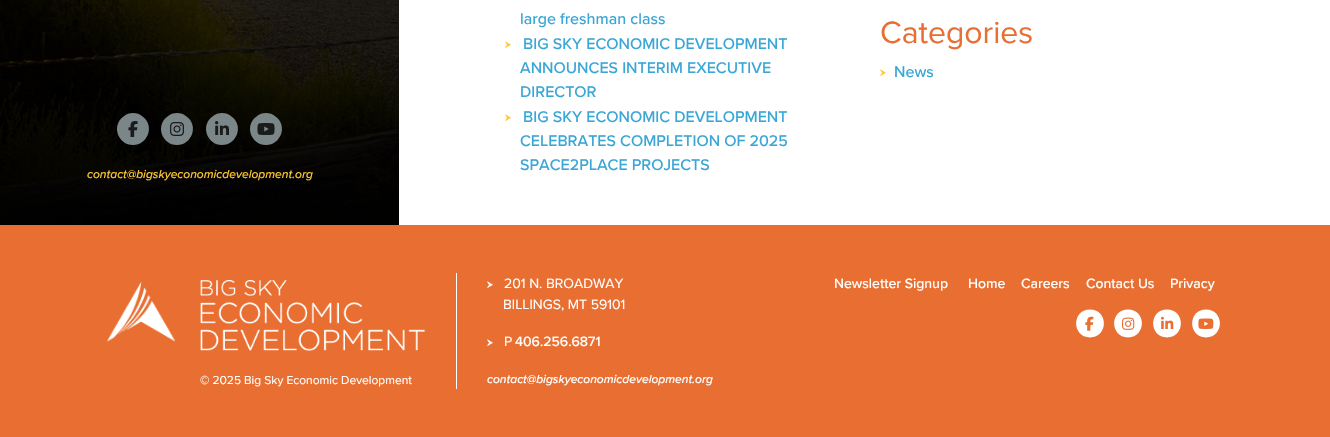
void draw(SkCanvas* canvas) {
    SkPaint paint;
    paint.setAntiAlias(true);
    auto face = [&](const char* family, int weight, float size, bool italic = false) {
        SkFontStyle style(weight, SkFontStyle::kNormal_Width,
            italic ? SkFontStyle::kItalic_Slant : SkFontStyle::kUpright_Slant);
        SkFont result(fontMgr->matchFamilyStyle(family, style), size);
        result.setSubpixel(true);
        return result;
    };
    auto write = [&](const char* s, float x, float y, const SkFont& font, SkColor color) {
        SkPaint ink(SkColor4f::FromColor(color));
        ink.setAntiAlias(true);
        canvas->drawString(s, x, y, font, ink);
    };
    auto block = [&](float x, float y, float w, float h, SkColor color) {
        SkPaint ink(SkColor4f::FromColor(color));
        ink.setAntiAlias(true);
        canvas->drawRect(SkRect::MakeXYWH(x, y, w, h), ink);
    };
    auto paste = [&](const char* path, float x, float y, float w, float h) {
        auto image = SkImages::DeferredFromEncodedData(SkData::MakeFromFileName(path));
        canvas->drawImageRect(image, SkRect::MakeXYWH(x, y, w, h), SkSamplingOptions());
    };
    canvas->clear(SK_ColorWHITE);
    auto kFont1 = face("Proxima Nova", 500, 16);
    write("large freshman class", 520, 24, kFont1, SkColorSetRGB(58, 166, 214));
    paste("pic1.png", 505, 41, 6, 7);
    write("BIG SKY ECONOMIC DEVELOPMENT", 523, 49, kFont1, SkColorSetRGB(58, 166, 214));
    write("ANNOUNCES INTERIM EXECUTIVE", 520, 73, kFont1, SkColorSetRGB(58, 166, 214));
    write("DIRECTOR", 520, 97, kFont1, SkColorSetRGB(58, 166, 214));
    paste("pic1.png", 505, 114, 6, 7);
    write("BIG SKY ECONOMIC DEVELOPMENT", 523, 122, kFont1, SkColorSetRGB(58, 166, 214));
    write("CELEBRATES COMPLETION OF 2025", 520, 146, kFont1, SkColorSetRGB(58, 166, 214));
    write("SPACE2PLACE PROJECTS", 520, 170, kFont1, SkColorSetRGB(58, 166, 214));
    auto kFont2 = face("Proxima Nova", 400, 32);
    write("Categories", 880, 43, kFont2, SkColorSetRGB(232, 110, 49));
    paste("pic1.png", 880, 69, 6, 7);
    write("News", 894, 77, kFont1, SkColorSetRGB(58, 166, 214));
    paste("pic2.png", 0, 0, 399, 225);
    paint.setColor(SkColorSetRGB(123, 134, 137));
    canvas->drawPath(SkPathBuilder().moveTo(133, 145).cubicTo(148, 145, 155, 125.5f, 142.5f, 116.5f).cubicTo(140, 114, 136.5f, 113, 133, 113).cubicTo(129.5f, 113, 126, 114, 123.5f, 116.5f).cubicTo(111, 125.5f, 118, 145, 133, 145).close().detach(), paint);
    paste("pic3.png", 128, 121, 10, 16);
    canvas->drawPath(SkPathBuilder().moveTo(177, 145).cubicTo(192, 145, 199, 125.5f, 186.5f, 116.5f).cubicTo(184, 114, 180.5f, 113, 177, 113).cubicTo(173.5f, 113, 170, 114, 167.5f, 116.5f).cubicTo(155, 125.5f, 162, 145, 177, 145).close().detach(), paint);
    paste("pic4.png", 170, 122, 14, 14);
    canvas->drawPath(SkPathBuilder().moveTo(222, 145).cubicTo(237, 145, 244, 125.5f, 231.5f, 116.5f).cubicTo(229, 114, 225.5f, 113, 222, 113).cubicTo(218.5f, 113, 215, 114, 212.5f, 116.5f).cubicTo(200, 125.5f, 207, 145, 222, 145).close().detach(), paint);
    paste("pic5.png", 215, 121, 14, 14);
    canvas->drawPath(SkPathBuilder().moveTo(266, 145).cubicTo(281, 145, 288, 125.5f, 275.5f, 116.5f).cubicTo(273, 114, 269.5f, 113, 266, 113).cubicTo(262.5f, 113, 259, 114, 256.5f, 116.5f).cubicTo(244, 125.5f, 251, 145, 266, 145).close().detach(), paint);
    paste("pic6.png", 257, 123, 18, 12);
    auto kFont3 = face("Proxima Nova", 500, 12, true);
    write("contact@bigskyeconomicdevelopment.org", 87, 178, kFont3, SkColorSetRGB(254, 199, 48));
    block(0, 225, 1330, 212, SkColorSetRGB(232, 110, 49));
    paste("pic7.png", 487, 281, 6, 7);
    auto kFont4 = face("Proxima Nova", 400, 14);
    write("201 N. BROADWAY", 504, 288, kFont4, SK_ColorWHITE);
    write("BILLINGS, MT 59101", 503, 309, kFont4, SK_ColorWHITE);
    paste("pic7.png", 487, 339, 6, 7);
    write("P", 504, 346, kFont4, SK_ColorWHITE);
    auto kFont5 = face("Proxima Nova", 500, 14);
    write("406.256.6871", 515, 346, kFont5, SK_ColorWHITE);
    write("contact@bigskyeconomicdevelopment.org", 487, 383, kFont3, SK_ColorWHITE);
    write("Newsletter Signup", 834, 288, kFont5, SK_ColorWHITE);
    write("Home", 968, 288, kFont5, SK_ColorWHITE);
    write("Careers", 1021, 288, kFont5, SK_ColorWHITE);
    write("Contact Us", 1086, 288, kFont5, SK_ColorWHITE);
    write("Privacy", 1170, 288, kFont5, SK_ColorWHITE);
    paint.setColor(SK_ColorWHITE);
    canvas->drawPath(SkPathBuilder().moveTo(1090, 337.5f).cubicTo(1108.5f, 337, 1108.5f, 309.5f, 1090, 309.5f).cubicTo(1071.5f, 309.5f, 1071.5f, 337, 1090, 337.5f).close().detach(), paint);
    paste("pic8.png", 1085, 316, 9, 15);
    canvas->drawPath(SkPathBuilder().moveTo(1128, 337.5f).cubicTo(1146.5f, 337, 1146.5f, 309.5f, 1128, 309.5f).cubicTo(1109.5f, 309.5f, 1109.5f, 337, 1128, 337.5f).close().detach(), paint);
    paste("pic9.png", 1122, 317, 13, 13);
    canvas->drawPath(SkPathBuilder().moveTo(1167, 337.5f).cubicTo(1185.5f, 337, 1185.5f, 309.5f, 1167, 309.5f).cubicTo(1148.5f, 309.5f, 1148.5f, 337, 1167, 337.5f).close().detach(), paint);
    paste("pic10.png", 1161, 316, 13, 13);
    canvas->drawPath(SkPathBuilder().moveTo(1206, 337.5f).cubicTo(1224.5f, 337, 1224.5f, 309.5f, 1206, 309.5f).cubicTo(1187.5f, 309.5f, 1187.5f, 337, 1206, 337.5f).close().detach(), paint);
    paste("pic11.png", 1198, 318, 16, 11);
    block(456, 273, 1, 116, SK_ColorWHITE);
    paste("pic12.png", 107, 282, 69, 60);
    paste("pic13.png", 200, 280, 225, 71);
    auto kFont6 = face("Proxima Nova", 400, 12);
    write("© 2025 Big Sky Economic Development", 200, 384, kFont6, SK_ColorWHITE);
}
